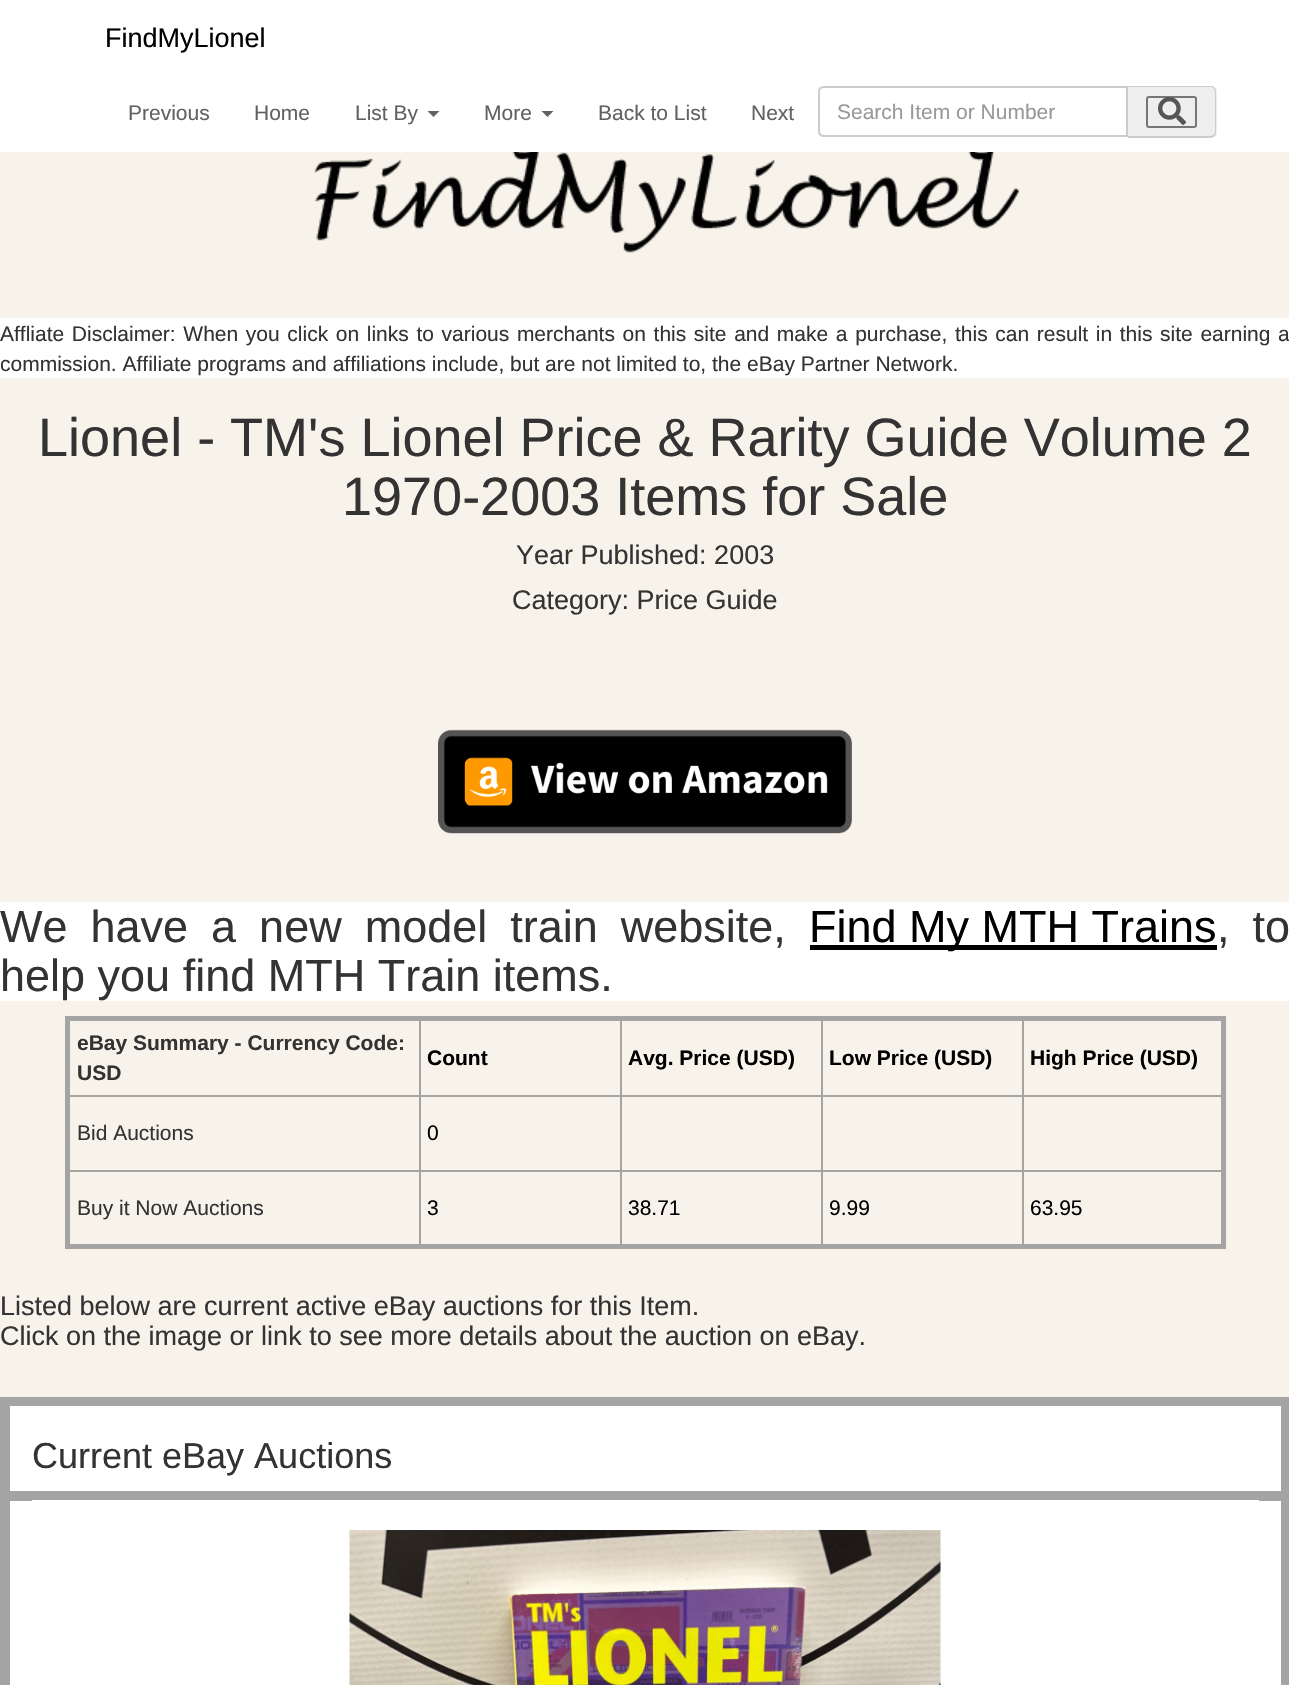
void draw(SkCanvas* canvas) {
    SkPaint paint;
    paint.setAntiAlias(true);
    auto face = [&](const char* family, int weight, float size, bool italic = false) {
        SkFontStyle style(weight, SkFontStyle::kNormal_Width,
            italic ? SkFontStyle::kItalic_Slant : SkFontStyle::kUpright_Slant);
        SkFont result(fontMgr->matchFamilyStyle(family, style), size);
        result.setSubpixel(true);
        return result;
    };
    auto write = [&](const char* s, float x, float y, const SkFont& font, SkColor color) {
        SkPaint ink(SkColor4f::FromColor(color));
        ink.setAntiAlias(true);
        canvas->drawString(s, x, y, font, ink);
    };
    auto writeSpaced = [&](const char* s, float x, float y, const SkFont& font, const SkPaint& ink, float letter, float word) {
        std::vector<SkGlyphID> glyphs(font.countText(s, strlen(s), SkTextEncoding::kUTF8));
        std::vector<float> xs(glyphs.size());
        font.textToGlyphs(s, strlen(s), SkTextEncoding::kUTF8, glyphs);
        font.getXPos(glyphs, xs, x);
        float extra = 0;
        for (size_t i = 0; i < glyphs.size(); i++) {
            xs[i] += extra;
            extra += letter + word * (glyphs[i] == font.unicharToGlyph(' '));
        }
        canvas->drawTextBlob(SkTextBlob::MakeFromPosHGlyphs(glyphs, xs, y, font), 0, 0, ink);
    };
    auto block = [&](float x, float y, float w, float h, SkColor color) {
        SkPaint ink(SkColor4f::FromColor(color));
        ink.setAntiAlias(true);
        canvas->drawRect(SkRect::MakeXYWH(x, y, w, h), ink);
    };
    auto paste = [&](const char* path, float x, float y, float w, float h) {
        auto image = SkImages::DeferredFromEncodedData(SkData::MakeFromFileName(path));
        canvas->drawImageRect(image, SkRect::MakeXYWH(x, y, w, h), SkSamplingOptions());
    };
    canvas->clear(SkColorSetRGB(247, 242, 234));
    block(0, 0, 1289, 152, SK_ColorWHITE);
    auto kFont1 = face("Liberation Sans", 400, 27);
    write("FindMyLionel", 105, 47, kFont1, SK_ColorBLACK);
    auto kFont2 = face("Liberation Sans", 400, 21);
    write("Previous", 128, 120, kFont2, SkColorSetRGB(97, 97, 97));
    write("Home", 254, 120, kFont2, SkColorSetRGB(97, 97, 97));
    write("List By", 355, 120, kFont2, SkColorSetRGB(97, 97, 97));
    paint.setColor(SkColorSetRGB(97, 97, 97));
    canvas->drawPath(SkPathBuilder().moveTo(427.5f, 111).lineTo(439.5f, 111).lineTo(433.5f, 117).close().detach(), paint);
    write("More", 484, 120, kFont2, SkColorSetRGB(97, 97, 97));
    canvas->drawPath(SkPathBuilder().moveTo(541.5f, 111).lineTo(553.5f, 111).lineTo(547.5f, 117).close().detach(), paint);
    write("Back to List", 598, 120, kFont2, SkColorSetRGB(97, 97, 97));
    write("Next", 751, 120, kFont2, SkColorSetRGB(97, 97, 97));
    paint.setStyle(SkPaint::kStroke_Style);
    paint.setStrokeWidth(2);
    paint.setColor(SkColorSetRGB(204, 204, 204));
    canvas->drawPath(SkPathBuilder().moveTo(824, 87).lineTo(1127, 87).lineTo(1127, 136).lineTo(824, 136).cubicTo(821, 136, 819, 134, 819, 131).lineTo(819, 92).cubicTo(819, 89, 821, 87, 824, 87).close().detach(), paint);
    write("Search Item or Number", 837, 119, kFont2, SkColorSetRGB(153, 153, 153));
    paint.setStyle(SkPaint::kFill_Style);
    paint.setColor(SkColorSetRGB(238, 238, 238));
    canvas->drawPath(SkPathBuilder().moveTo(1128, 86).lineTo(1211, 86).cubicTo(1214.5f, 86, 1217, 88.5f, 1217, 92).lineTo(1217, 132).cubicTo(1217, 135.5f, 1214.5f, 138, 1211, 138).lineTo(1128, 138).close().detach(), paint);
    paint.setColor(SkColorSetRGB(204, 204, 204));
    canvas->drawPath(SkPathBuilder(SkPathFillType::kEvenOdd).moveTo(1128, 86).lineTo(1210, 86).cubicTo(1214, 86, 1216, 88, 1216, 92).lineTo(1216, 132).cubicTo(1216, 135, 1214, 138, 1210, 138).lineTo(1128, 138).close().moveTo(1128, 87).lineTo(1210, 87).cubicTo(1213, 87, 1215, 89, 1215, 92).lineTo(1215, 132).cubicTo(1215, 134, 1213, 136, 1210, 136).lineTo(1128, 136).close().detach(), paint);
    paint.setStyle(SkPaint::kStroke_Style);
    paint.setColor(SkColorSetRGB(118, 118, 118));
    canvas->drawRoundRect(SkRect::MakeXYWH(1147, 97, 49, 30), 2, 2, paint);
    paste("pic1.png", 1158, 97, 28, 28);
    paste("pic2.png", 314, 152, 706, 101);
    block(0, 318, 1289, 60, SK_ColorWHITE);
    paint.setStyle(SkPaint::kFill_Style);
    paint.setColor(SkColorSetRGB(51, 51, 51));
    writeSpaced("Affliate Disclaimer: When you click on links to various merchants on this site and make a purchase, this can result in this site earning a", 0, 341, kFont2, paint, 0, 1.8f);
    write("commission. Affiliate programs and affiliations include, but are not limited to, the eBay Partner Network.", 0, 371, kFont2, SkColorSetRGB(51, 51, 51));
    auto kFont3 = face("Liberation Sans", 400, 54);
    write("Lionel - TM's Lionel Price & Rarity Guide Volume 2", 38, 456, kFont3, SkColorSetRGB(51, 51, 51));
    write("1970-2003 Items for Sale", 342, 515, kFont3, SkColorSetRGB(51, 51, 51));
    write("Year Published: 2003", 516, 564, kFont1, SkColorSetRGB(51, 51, 51));
    write("Category: Price Guide", 512, 609, kFont1, SkColorSetRGB(51, 51, 51));
    paste("pic3.png", 438, 729, 414, 105);
    block(0, 902, 1289, 99, SK_ColorWHITE);
    auto kFont4 = face("Liberation Sans", 400, 45);
    writeSpaced("We have a new model train website,", 0, 942, kFont4, paint, 0, 10.5f);
    block(810, 945, 407, 5, SK_ColorBLACK);
    write("Find My MTH Trains", 809, 942, kFont4, SK_ColorBLACK);
    writeSpaced(", to", 1217, 942, kFont4, paint, 0, 10.5f);
    write("help you find MTH Train items.", 0, 991, kFont4, SkColorSetRGB(51, 51, 51));
    block(1022, 1095, 202, 2, SkColorSetRGB(164, 164, 164));
    block(1022, 1170, 202, 2, SkColorSetRGB(164, 164, 164));
    block(1022, 1170, 2, 77, SkColorSetRGB(164, 164, 164));
    block(821, 1170, 202, 2, SkColorSetRGB(164, 164, 164));
    block(1022, 1095, 2, 77, SkColorSetRGB(164, 164, 164));
    block(821, 1095, 202, 2, SkColorSetRGB(164, 164, 164));
    block(821, 1170, 2, 77, SkColorSetRGB(164, 164, 164));
    block(620, 1170, 202, 2, SkColorSetRGB(164, 164, 164));
    block(821, 1095, 2, 77, SkColorSetRGB(164, 164, 164));
    block(620, 1095, 202, 2, SkColorSetRGB(164, 164, 164));
    block(620, 1170, 2, 77, SkColorSetRGB(164, 164, 164));
    block(419, 1170, 202, 2, SkColorSetRGB(164, 164, 164));
    block(620, 1095, 2, 77, SkColorSetRGB(164, 164, 164));
    block(419, 1095, 202, 2, SkColorSetRGB(164, 164, 164));
    block(419, 1170, 2, 77, SkColorSetRGB(164, 164, 164));
    block(66, 1170, 354, 2, SkColorSetRGB(164, 164, 164));
    block(419, 1095, 2, 77, SkColorSetRGB(164, 164, 164));
    block(66, 1095, 354, 2, SkColorSetRGB(164, 164, 164));
    block(419, 1017, 2, 80, SkColorSetRGB(164, 164, 164));
    block(620, 1017, 2, 80, SkColorSetRGB(164, 164, 164));
    block(821, 1017, 2, 80, SkColorSetRGB(164, 164, 164));
    block(1022, 1017, 2, 80, SkColorSetRGB(164, 164, 164));
    block(65, 1016, 1161, 5, SkColorSetRGB(164, 164, 164));
    block(1221, 1016, 5, 232, SkColorSetRGB(164, 164, 164));
    block(65, 1244, 1161, 5, SkColorSetRGB(164, 164, 164));
    block(65, 1016, 5, 232, SkColorSetRGB(164, 164, 164));
    auto kFont5 = face("Liberation Sans", 700, 21);
    write("eBay Summary - Currency Code:", 77, 1050, kFont5, SkColorSetRGB(51, 51, 51));
    write("USD", 77, 1080, kFont5, SkColorSetRGB(51, 51, 51));
    write("Count", 427, 1065, kFont5, SK_ColorBLACK);
    write("Avg. Price (USD)", 628, 1065, kFont5, SK_ColorBLACK);
    write("Low Price (USD)", 829, 1065, kFont5, SK_ColorBLACK);
    write("High Price (USD)", 1030, 1065, kFont5, SK_ColorBLACK);
    write("Bid Auctions", 77, 1140, kFont2, SkColorSetRGB(51, 51, 51));
    write("0", 427, 1140, kFont2, SK_ColorBLACK);
    write("Buy it Now Auctions", 77, 1215, kFont2, SkColorSetRGB(51, 51, 51));
    write("3", 427, 1215, kFont2, SK_ColorBLACK);
    write("38.71", 628, 1215, kFont2, SK_ColorBLACK);
    write("9.99", 829, 1215, kFont2, SK_ColorBLACK);
    write("63.95", 1030, 1215, kFont2, SK_ColorBLACK);
    write("Listed below are current active eBay auctions for this Item.", 0, 1315, kFont1, SkColorSetRGB(51, 51, 51));
    write("Click on the image or link to see more details about the auction on eBay.", 0, 1345, kFont1, SkColorSetRGB(51, 51, 51));
    paint.setStyle(SkPaint::kStroke_Style);
    paint.setStrokeWidth(5);
    paint.setColor(SkColorSetRGB(164, 164, 164));
    canvas->drawRect(SkRect::MakeXYWH(2.5f, 1399.5f, 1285, 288), paint);
    paint.setStyle(SkPaint::kFill_Style);
    paint.setColor(SK_ColorWHITE);
    canvas->drawRect(SkRect::MakeXYWH(7.5f, 1403.5f, 1276, 90), paint);
    paint.setStyle(SkPaint::kStroke_Style);
    paint.setColor(SkColorSetRGB(164, 164, 164));
    canvas->drawRect(SkRect::MakeXYWH(7.5f, 1403.5f, 1276, 90), paint);
    auto kFont6 = face("Liberation Sans", 400, 36);
    write("Current eBay Auctions", 32, 1468, kFont6, SkColorSetRGB(51, 51, 51));
    paint.setStyle(SkPaint::kFill_Style);
    paint.setColor(SK_ColorWHITE);
    canvas->drawRect(SkRect::MakeXYWH(7.5f, 1498.5f, 1276, 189), paint);
    paint.setStyle(SkPaint::kStroke_Style);
    paint.setColor(SkColorSetRGB(164, 164, 164));
    canvas->drawRect(SkRect::MakeXYWH(7.5f, 1498.5f, 1276, 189), paint);
    block(32, 1500, 1227, 1, SK_ColorWHITE);
    paste("pic4.png", 349, 1530, 592, 155);
}
